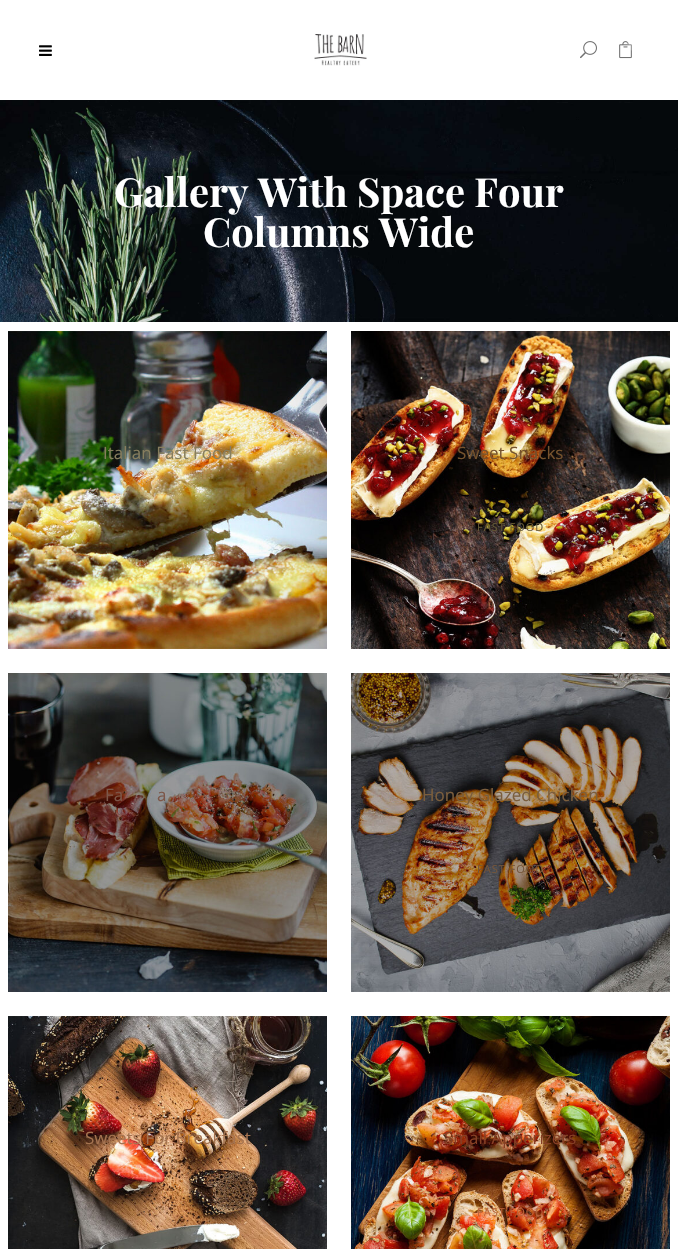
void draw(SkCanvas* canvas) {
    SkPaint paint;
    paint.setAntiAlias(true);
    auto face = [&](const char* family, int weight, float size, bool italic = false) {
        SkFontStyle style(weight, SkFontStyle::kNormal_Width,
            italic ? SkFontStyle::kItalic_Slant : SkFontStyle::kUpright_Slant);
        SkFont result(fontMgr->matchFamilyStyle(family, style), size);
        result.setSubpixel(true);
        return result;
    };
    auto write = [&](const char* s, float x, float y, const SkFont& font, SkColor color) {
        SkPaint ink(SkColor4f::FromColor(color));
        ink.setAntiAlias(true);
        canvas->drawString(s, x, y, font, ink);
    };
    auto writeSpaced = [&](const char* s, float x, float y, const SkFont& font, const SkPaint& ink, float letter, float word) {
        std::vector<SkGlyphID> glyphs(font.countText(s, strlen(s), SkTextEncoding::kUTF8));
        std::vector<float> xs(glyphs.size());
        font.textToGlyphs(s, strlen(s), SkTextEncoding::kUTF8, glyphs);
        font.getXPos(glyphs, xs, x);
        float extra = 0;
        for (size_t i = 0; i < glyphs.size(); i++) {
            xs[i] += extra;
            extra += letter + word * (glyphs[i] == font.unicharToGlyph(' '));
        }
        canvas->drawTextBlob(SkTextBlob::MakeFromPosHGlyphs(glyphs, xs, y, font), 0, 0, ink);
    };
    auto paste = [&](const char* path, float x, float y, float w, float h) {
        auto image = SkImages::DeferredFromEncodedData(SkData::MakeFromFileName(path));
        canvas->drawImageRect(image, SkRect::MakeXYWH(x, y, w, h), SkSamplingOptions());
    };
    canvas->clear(SK_ColorWHITE);
    paste("pic1.png", 39, 45, 13, 11);
    paste("pic2.png", 314, 34, 53, 32);
    paste("pic3.png", 580, 41, 17, 18);
    paste("pic4.png", 619, 41, 13, 18);
    paint.setColor(SkColorSetARGB(51, 255, 255, 255));
    canvas->drawCircle(634.5f, 43.5f, 7.5f, paint);
    paste("pic5.png", 0, 100, 678, 222);
    auto kFont1 = face("Playfair Display", 700, 40);
    write("Gallery With Space Four", 114, 207, kFont1, SK_ColorWHITE);
    write("Columns Wide", 203, 247, kFont1, SK_ColorWHITE);
    paste("pic6.png", 8, 331, 319, 318);
    auto kFont2 = face("Open Sans", 400, 17);
    write("Italian Fast Food", 103, 459, kFont2, SkColorSetRGB(135, 126, 94));
    paste("pic7.png", 351, 331, 319, 318);
    write("Sweet Snacks", 457, 459, kFont2, SkColorSetRGB(118, 83, 45));
    auto kFont3 = face("Open Sans", 400, 11);
    paint.setColor(SkColorSetRGB(103, 90, 54));
    writeSpaced("FAST FOOD", 477, 531, kFont3, paint, 1, 0);
    paste("pic8.png", 8, 673, 319, 319);
    write("Fa", 105, 801, kFont2, SkColorSetRGB(124, 87, 73));
    write("a", 157, 801, kFont2, SkColorSetRGB(124, 87, 73));
    paste("pic9.png", 351, 673, 319, 319);
    write("Honey Glazed Chicken", 422, 801, kFont2, SkColorSetRGB(123, 94, 61));
    paint.setColor(SkColorSetRGB(117, 85, 57));
    writeSpaced("FAST FOOD", 477, 873, kFont3, paint, 1, 0);
    paste("pic10.png", 8, 1016, 319, 233);
    write("Sweets For Breakfast", 85, 1144, kFont2, SkColorSetRGB(165, 115, 80));
    paste("pic11.png", 351, 1016, 319, 233);
    write("Small Apperizers", 444, 1144, kFont2, SkColorSetRGB(134, 63, 36));
    paint.setColor(SkColorSetRGB(187, 99, 58));
    writeSpaced("FAST FOOD", 477, 1216, kFont3, paint, 1, 0);
}
